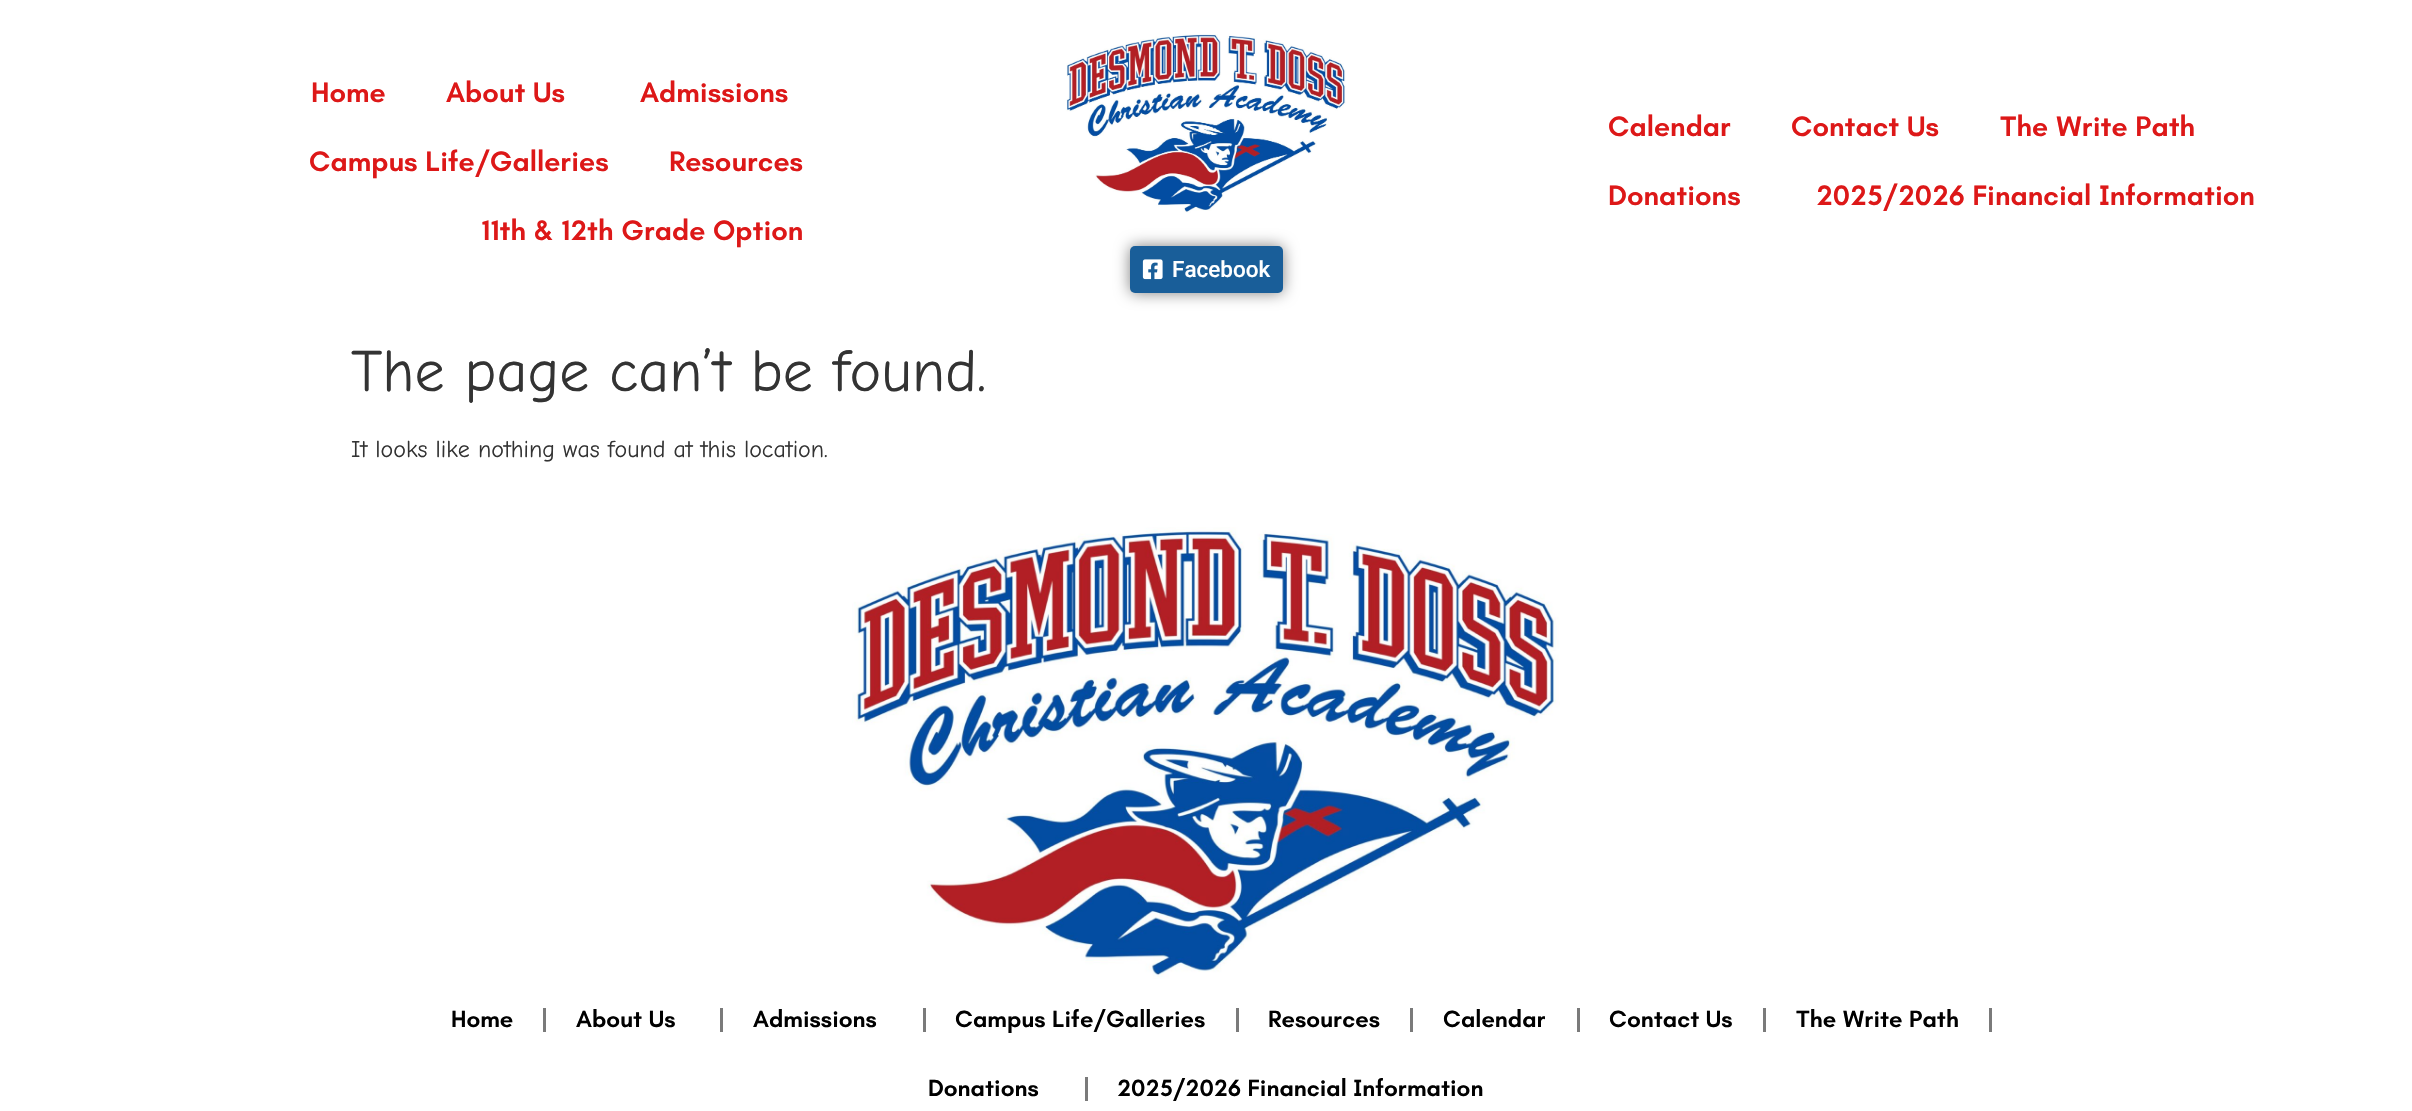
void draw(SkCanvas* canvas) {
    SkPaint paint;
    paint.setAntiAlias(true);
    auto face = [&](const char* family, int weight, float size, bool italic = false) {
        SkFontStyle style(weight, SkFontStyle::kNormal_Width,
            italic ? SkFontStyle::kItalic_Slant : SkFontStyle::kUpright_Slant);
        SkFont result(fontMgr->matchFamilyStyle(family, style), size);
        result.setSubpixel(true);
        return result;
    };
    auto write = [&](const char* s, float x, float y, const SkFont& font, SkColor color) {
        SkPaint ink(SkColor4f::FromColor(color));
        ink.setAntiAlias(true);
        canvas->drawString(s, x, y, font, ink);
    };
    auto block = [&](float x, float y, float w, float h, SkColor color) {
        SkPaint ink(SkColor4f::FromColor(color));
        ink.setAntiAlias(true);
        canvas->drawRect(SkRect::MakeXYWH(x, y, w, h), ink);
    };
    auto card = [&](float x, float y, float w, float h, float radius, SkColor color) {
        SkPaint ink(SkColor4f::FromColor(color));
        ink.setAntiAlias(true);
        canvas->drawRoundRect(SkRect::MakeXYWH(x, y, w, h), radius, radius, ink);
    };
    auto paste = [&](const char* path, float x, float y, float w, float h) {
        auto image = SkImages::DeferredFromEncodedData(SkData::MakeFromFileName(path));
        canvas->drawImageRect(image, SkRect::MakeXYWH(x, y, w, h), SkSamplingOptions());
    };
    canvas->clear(SK_ColorWHITE);
    auto kFont1 = face("Teachers", 600, 28.75f);
    write("Home", 311, 102, kFont1, SkColorSetRGB(221, 24, 24));
    write("About Us", 446, 102, kFont1, SkColorSetRGB(221, 24, 24));
    write("Admissions", 640, 102, kFont1, SkColorSetRGB(221, 24, 24));
    write("Campus Life/Galleries", 309, 171, kFont1, SkColorSetRGB(221, 24, 24));
    write("Resources", 669, 171, kFont1, SkColorSetRGB(221, 24, 24));
    write("11th & 12th Grade Option", 481, 240, kFont1, SkColorSetRGB(221, 24, 24));
    write("Calendar", 1608, 136, kFont1, SkColorSetRGB(221, 24, 24));
    write("Contact Us", 1791, 136, kFont1, SkColorSetRGB(221, 24, 24));
    write("The Write Path", 2000, 136, kFont1, SkColorSetRGB(221, 24, 24));
    write("Donations", 1608, 205, kFont1, SkColorSetRGB(221, 24, 24));
    write("2025/2026 Financial Information", 1816, 205, kFont1, SkColorSetRGB(221, 24, 24));
    paste("pic1.png", 1066, 34, 280, 179);
    paint.setColor(SkColorSetARGB(128, 0, 0, 0));
    paint.setMaskFilter(SkMaskFilter::MakeBlur(kNormal_SkBlurStyle, 7.5f));
    canvas->drawRoundRect(SkRect::MakeXYWH(1130, 246, 153, 47), 5, 5, paint);
    paint.setMaskFilter(nullptr);
    card(1130, 246, 153, 47, 5, SkColorSetRGB(25, 94, 153));
    paste("pic2.png", 1142, 259, 21, 21);
    auto kFont2 = face("Roboto", 500, 22.5f);
    write("Facebook", 1172, 277, kFont2, SK_ColorWHITE);
    auto kFont3 = face("Comic Neue", 400, 60);
    write("The page can’t be found.", 351, 391, kFont3, SkColorSetRGB(51, 51, 51));
    auto kFont4 = face("Comic Neue", 400, 24);
    write("It looks like nothing was found at this location.", 351, 457, kFont4, SkColorSetRGB(51, 51, 51));
    paste("pic3.png", 852, 527, 708, 452);
    auto kFont5 = face("Teachers", 600, 24);
    write("Home", 451, 1027, kFont5, SK_ColorBLACK);
    block(543, 1008, 3, 24, SkColorSetRGB(122, 122, 122));
    write("About Us", 576, 1027, kFont5, SK_ColorBLACK);
    block(720, 1008, 3, 24, SkColorSetRGB(122, 122, 122));
    write("Admissions", 753, 1027, kFont5, SK_ColorBLACK);
    block(923, 1008, 3, 24, SkColorSetRGB(122, 122, 122));
    write("Campus Life/Galleries", 955, 1027, kFont5, SK_ColorBLACK);
    block(1236, 1008, 3, 24, SkColorSetRGB(122, 122, 122));
    write("Resources", 1268, 1027, kFont5, SK_ColorBLACK);
    block(1410, 1008, 3, 24, SkColorSetRGB(122, 122, 122));
    write("Calendar", 1443, 1027, kFont5, SK_ColorBLACK);
    block(1577, 1008, 3, 24, SkColorSetRGB(122, 122, 122));
    write("Contact Us", 1609, 1027, kFont5, SK_ColorBLACK);
    block(1763, 1008, 3, 24, SkColorSetRGB(122, 122, 122));
    write("The Write Path", 1796, 1027, kFont5, SK_ColorBLACK);
    block(1989, 1008, 3, 24, SkColorSetRGB(122, 122, 122));
    write("Donations", 928, 1096, kFont5, SK_ColorBLACK);
    block(1085, 1077, 3, 24, SkColorSetRGB(122, 122, 122));
    write("2025/2026 Financial Information", 1117, 1096, kFont5, SK_ColorBLACK);
}
